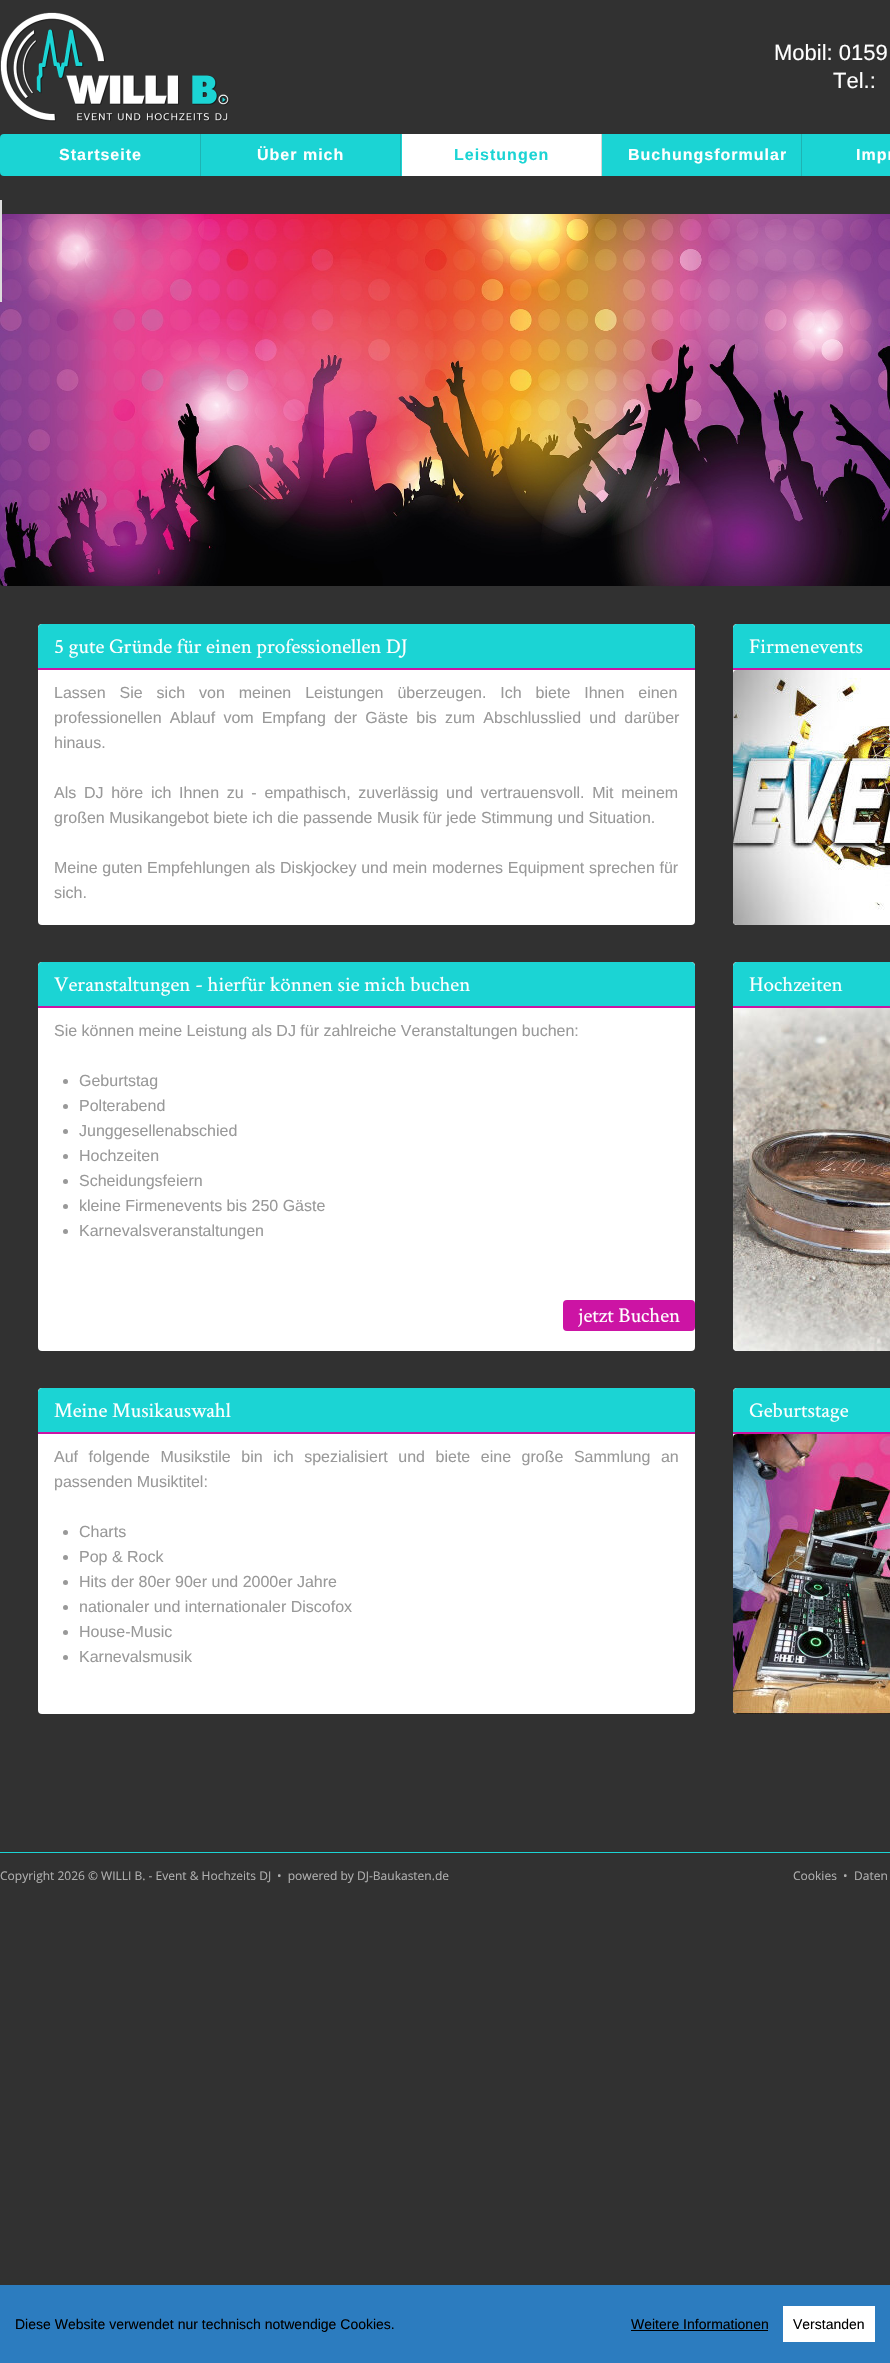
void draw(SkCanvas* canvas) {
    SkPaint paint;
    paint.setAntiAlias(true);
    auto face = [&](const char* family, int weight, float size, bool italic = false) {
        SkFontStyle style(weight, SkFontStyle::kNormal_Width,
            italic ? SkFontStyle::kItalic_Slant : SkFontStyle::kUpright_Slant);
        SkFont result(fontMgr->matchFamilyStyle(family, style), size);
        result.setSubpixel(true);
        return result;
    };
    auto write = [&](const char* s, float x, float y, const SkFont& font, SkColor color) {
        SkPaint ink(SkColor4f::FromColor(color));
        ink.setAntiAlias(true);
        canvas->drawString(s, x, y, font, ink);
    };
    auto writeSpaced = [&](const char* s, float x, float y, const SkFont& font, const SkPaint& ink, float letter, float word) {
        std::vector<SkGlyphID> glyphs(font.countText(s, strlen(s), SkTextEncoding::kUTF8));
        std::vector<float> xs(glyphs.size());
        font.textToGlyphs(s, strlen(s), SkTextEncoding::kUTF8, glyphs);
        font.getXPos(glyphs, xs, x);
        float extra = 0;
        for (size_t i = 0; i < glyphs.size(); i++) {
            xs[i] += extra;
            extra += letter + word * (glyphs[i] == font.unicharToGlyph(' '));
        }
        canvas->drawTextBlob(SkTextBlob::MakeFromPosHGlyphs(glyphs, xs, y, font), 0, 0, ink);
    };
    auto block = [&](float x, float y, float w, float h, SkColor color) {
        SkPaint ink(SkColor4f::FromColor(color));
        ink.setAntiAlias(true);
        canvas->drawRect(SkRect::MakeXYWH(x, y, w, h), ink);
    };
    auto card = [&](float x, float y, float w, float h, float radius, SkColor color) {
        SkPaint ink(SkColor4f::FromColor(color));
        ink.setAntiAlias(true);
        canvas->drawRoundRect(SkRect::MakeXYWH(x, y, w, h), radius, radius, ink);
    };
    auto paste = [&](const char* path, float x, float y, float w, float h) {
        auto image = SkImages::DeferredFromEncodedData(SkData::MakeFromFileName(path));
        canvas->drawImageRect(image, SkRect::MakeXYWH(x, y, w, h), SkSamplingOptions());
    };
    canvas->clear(SkColorSetRGB(49, 49, 49));
    paste("pic1.png", 0, 12, 230, 110);
    auto kFont1 = face("Liberation Sans", 400, 22);
    write("Mobil: 0159", 774, 60, kFont1, SK_ColorWHITE);
    write("Tel.:", 833, 88, kFont1, SK_ColorWHITE);
    card(0, 134, 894, 42, 4, SkColorSetRGB(27, 212, 212));
    block(200, 134, 1, 42, SkColorSetRGB(31, 179, 179));
    auto kFont2 = face("Liberation Sans", 700, 16);
    paint.setColor(SK_ColorWHITE);
    writeSpaced("Startseite", 59, 160, kFont2, paint, 1, 0);
    block(400, 134, 1, 42, SkColorSetRGB(31, 179, 179));
    writeSpaced("Über mich", 257, 160, kFont2, paint, 1, 0);
    block(402, 134, 199, 42, SK_ColorWHITE);
    block(601, 134, 1, 42, SkColorSetRGB(214, 214, 214));
    paint.setColor(SkColorSetRGB(27, 212, 212));
    writeSpaced("Leistungen", 454, 160, kFont2, paint, 1, 0);
    block(801, 134, 1, 42, SkColorSetRGB(31, 179, 179));
    paint.setColor(SK_ColorWHITE);
    writeSpaced("Buchungsformular", 628, 160, kFont2, paint, 1, 0);
    writeSpaced("Impr", 856, 160, kFont2, paint, 1, 0);
    paste("pic2.png", 0, 214, 890, 372);
    block(0, 200, 2, 102, SkColorSetRGB(221, 221, 221));
    card(38, 624, 657, 301, 4, SK_ColorWHITE);
    paint.setColor(SkColorSetRGB(27, 212, 212));
    canvas->drawPath(SkPathBuilder().moveTo(42, 624).lineTo(691, 624).cubicTo(693, 624, 695, 626, 695, 628).lineTo(695, 668).lineTo(38, 668).lineTo(38, 628).cubicTo(38, 626, 40, 624, 42, 624).close().detach(), paint);
    block(38, 668, 657, 2, SkColorSetRGB(204, 20, 164));
    auto kFont3 = face("Crimson Text", 400, 21);
    write("5 gute Gründe für einen professionellen DJ", 54, 653, kFont3, SK_ColorWHITE);
    auto kFont4 = face("Liberation Sans", 400, 16);
    paint.setColor(SkColorSetRGB(153, 153, 153));
    writeSpaced("Lassen Sie sich von meinen Leistungen überzeugen. Ich biete Ihnen einen", 54, 698, kFont4, paint, 0, 9.5f);
    writeSpaced("professionellen Ablauf vom Empfang der Gäste bis zum Abschlusslied und darüber", 54, 723, kFont4, paint, 0, 3.75f);
    write("hinaus.", 54, 748, kFont4, SkColorSetRGB(153, 153, 153));
    writeSpaced("Als DJ höre ich Ihnen zu - empathisch, zuverlässig und vertrauensvoll. Mit meinem", 54, 798, kFont4, paint, 0, 3.25f);
    write("großen Musikangebot biete ich die passende Musik für jede Stimmung und Situation.", 54, 823, kFont4, SkColorSetRGB(153, 153, 153));
    writeSpaced("Meine guten Empfehlungen als Diskjockey und mein modernes Equipment sprechen für", 54, 873, kFont4, paint, 0, 0.25f);
    write("sich.", 54, 898, kFont4, SkColorSetRGB(153, 153, 153));
    card(733, 624, 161, 301, 4, SK_ColorWHITE);
    paint.setColor(SkColorSetRGB(27, 212, 212));
    canvas->drawPath(SkPathBuilder().moveTo(737, 624).lineTo(890, 624).cubicTo(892, 624, 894, 626, 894, 628).lineTo(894, 668).lineTo(733, 668).lineTo(733, 628).cubicTo(733, 626, 735, 624, 737, 624).close().detach(), paint);
    block(733, 668, 157, 2, SkColorSetRGB(204, 20, 164));
    write("Firmenevents", 749, 653, kFont3, SK_ColorWHITE);
    paste("pic3.png", 733, 670, 157, 255);
    card(38, 962, 657, 389, 4, SK_ColorWHITE);
    canvas->drawPath(SkPathBuilder().moveTo(42, 962).lineTo(691, 962).cubicTo(693, 962, 695, 964, 695, 966).lineTo(695, 1006).lineTo(38, 1006).lineTo(38, 966).cubicTo(38, 964, 40, 962, 42, 962).close().detach(), paint);
    block(38, 1006, 657, 2, SkColorSetRGB(204, 20, 164));
    write("Veranstaltungen - hierfür können sie mich buchen", 54, 991, kFont3, SK_ColorWHITE);
    write("Sie können meine Leistung als DJ für zahlreiche Veranstaltungen buchen:", 54, 1036, kFont4, SkColorSetRGB(153, 153, 153));
    paint.setColor(SkColorSetRGB(153, 153, 153));
    canvas->drawCircle(65.5f, 1081.5f, 2.5f, paint);
    write("Geburtstag", 79, 1086, kFont4, SkColorSetRGB(153, 153, 153));
    canvas->drawCircle(65.5f, 1106.5f, 2.5f, paint);
    write("Polterabend", 79, 1111, kFont4, SkColorSetRGB(153, 153, 153));
    canvas->drawCircle(65.5f, 1131.5f, 2.5f, paint);
    write("Junggesellenabschied", 79, 1136, kFont4, SkColorSetRGB(153, 153, 153));
    canvas->drawCircle(65.5f, 1156.5f, 2.5f, paint);
    write("Hochzeiten", 79, 1161, kFont4, SkColorSetRGB(153, 153, 153));
    canvas->drawCircle(65.5f, 1181.5f, 2.5f, paint);
    write("Scheidungsfeiern", 79, 1186, kFont4, SkColorSetRGB(153, 153, 153));
    canvas->drawCircle(65.5f, 1206.5f, 2.5f, paint);
    write("kleine Firmenevents bis 250 Gäste", 79, 1211, kFont4, SkColorSetRGB(153, 153, 153));
    canvas->drawCircle(65.5f, 1231.5f, 2.5f, paint);
    write("Karnevalsveranstaltungen", 79, 1236, kFont4, SkColorSetRGB(153, 153, 153));
    card(563, 1300, 132, 31, 4, SkColorSetRGB(204, 20, 164));
    write("jetzt Buchen", 578, 1322, kFont3, SK_ColorWHITE);
    card(733, 962, 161, 389, 4, SK_ColorWHITE);
    paint.setColor(SkColorSetRGB(27, 212, 212));
    canvas->drawPath(SkPathBuilder().moveTo(737, 962).lineTo(890, 962).cubicTo(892, 962, 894, 964, 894, 966).lineTo(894, 1006).lineTo(733, 1006).lineTo(733, 966).cubicTo(733, 964, 735, 962, 737, 962).close().detach(), paint);
    block(733, 1006, 157, 2, SkColorSetRGB(204, 20, 164));
    write("Hochzeiten", 749, 991, kFont3, SK_ColorWHITE);
    paste("pic4.png", 733, 1008, 157, 343);
    card(38, 1388, 657, 326, 4, SK_ColorWHITE);
    canvas->drawPath(SkPathBuilder().moveTo(42, 1388).lineTo(691, 1388).cubicTo(693, 1388, 695, 1390, 695, 1392).lineTo(695, 1432).lineTo(38, 1432).lineTo(38, 1392).cubicTo(38, 1390, 40, 1388, 42, 1388).close().detach(), paint);
    block(38, 1432, 657, 2, SkColorSetRGB(204, 20, 164));
    write("Meine Musikauswahl", 54, 1417, kFont3, SK_ColorWHITE);
    paint.setColor(SkColorSetRGB(153, 153, 153));
    writeSpaced("Auf folgende Musikstile bin ich spezialisiert und biete eine große Sammlung an", 54, 1462, kFont4, paint, 0, 6.1f);
    write("passenden Musiktitel:", 54, 1487, kFont4, SkColorSetRGB(153, 153, 153));
    canvas->drawCircle(65.5f, 1532.5f, 2.5f, paint);
    write("Charts", 79, 1537, kFont4, SkColorSetRGB(153, 153, 153));
    canvas->drawCircle(65.5f, 1557.5f, 2.5f, paint);
    write("Pop & Rock", 79, 1562, kFont4, SkColorSetRGB(153, 153, 153));
    canvas->drawCircle(65.5f, 1582.5f, 2.5f, paint);
    write("Hits der 80er 90er und 2000er Jahre", 79, 1587, kFont4, SkColorSetRGB(153, 153, 153));
    canvas->drawCircle(65.5f, 1607.5f, 2.5f, paint);
    write("nationaler und internationaler Discofox", 79, 1612, kFont4, SkColorSetRGB(153, 153, 153));
    canvas->drawCircle(65.5f, 1632.5f, 2.5f, paint);
    write("House-Music", 79, 1637, kFont4, SkColorSetRGB(153, 153, 153));
    canvas->drawCircle(65.5f, 1657.5f, 2.5f, paint);
    write("Karnevalsmusik", 79, 1662, kFont4, SkColorSetRGB(153, 153, 153));
    card(733, 1388, 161, 326, 4, SK_ColorWHITE);
    paint.setColor(SkColorSetRGB(27, 212, 212));
    canvas->drawPath(SkPathBuilder().moveTo(737, 1388).lineTo(890, 1388).cubicTo(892, 1388, 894, 1390, 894, 1392).lineTo(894, 1432).lineTo(733, 1432).lineTo(733, 1392).cubicTo(733, 1390, 735, 1388, 737, 1388).close().detach(), paint);
    block(733, 1432, 157, 2, SkColorSetRGB(204, 20, 164));
    write("Geburtstage", 749, 1417, kFont3, SK_ColorWHITE);
    paste("pic5.png", 733, 1434, 157, 280);
    block(0, 1852, 890, 1, SkColorSetRGB(27, 212, 212));
    auto kFont5 = face("Open Sans", 400, 12);
    write("Copyright 2026 © WILLI B. - Event & Hochzeits DJ", 0, 1880, kFont5, SkColorSetRGB(175, 175, 175));
    write("•  powered by DJ-Baukasten.de", 277, 1880, kFont5, SkColorSetRGB(175, 175, 175));
    write("Cookies", 793, 1880, kFont5, SkColorSetRGB(175, 175, 175));
    write("•", 843, 1880, kFont5, SkColorSetRGB(175, 175, 175));
    write("Daten", 854, 1880, kFont5, SkColorSetRGB(175, 175, 175));
    block(0, 2285, 890, 78, SkColorSetRGB(44, 124, 191));
    auto kFont6 = face("Liberation Sans", 400, 14);
    write("Diese Website verwendet nur technisch notwendige Cookies.", 15, 2329, kFont6, SK_ColorBLACK);
    write("Weitere Informationen", 631, 2329, kFont6, SK_ColorBLACK);
    block(631, 2330, 137, 1, SK_ColorBLACK);
    block(783, 2306, 92, 36, SK_ColorWHITE);
    write("Verstanden", 793, 2329, kFont6, SK_ColorBLACK);
}
